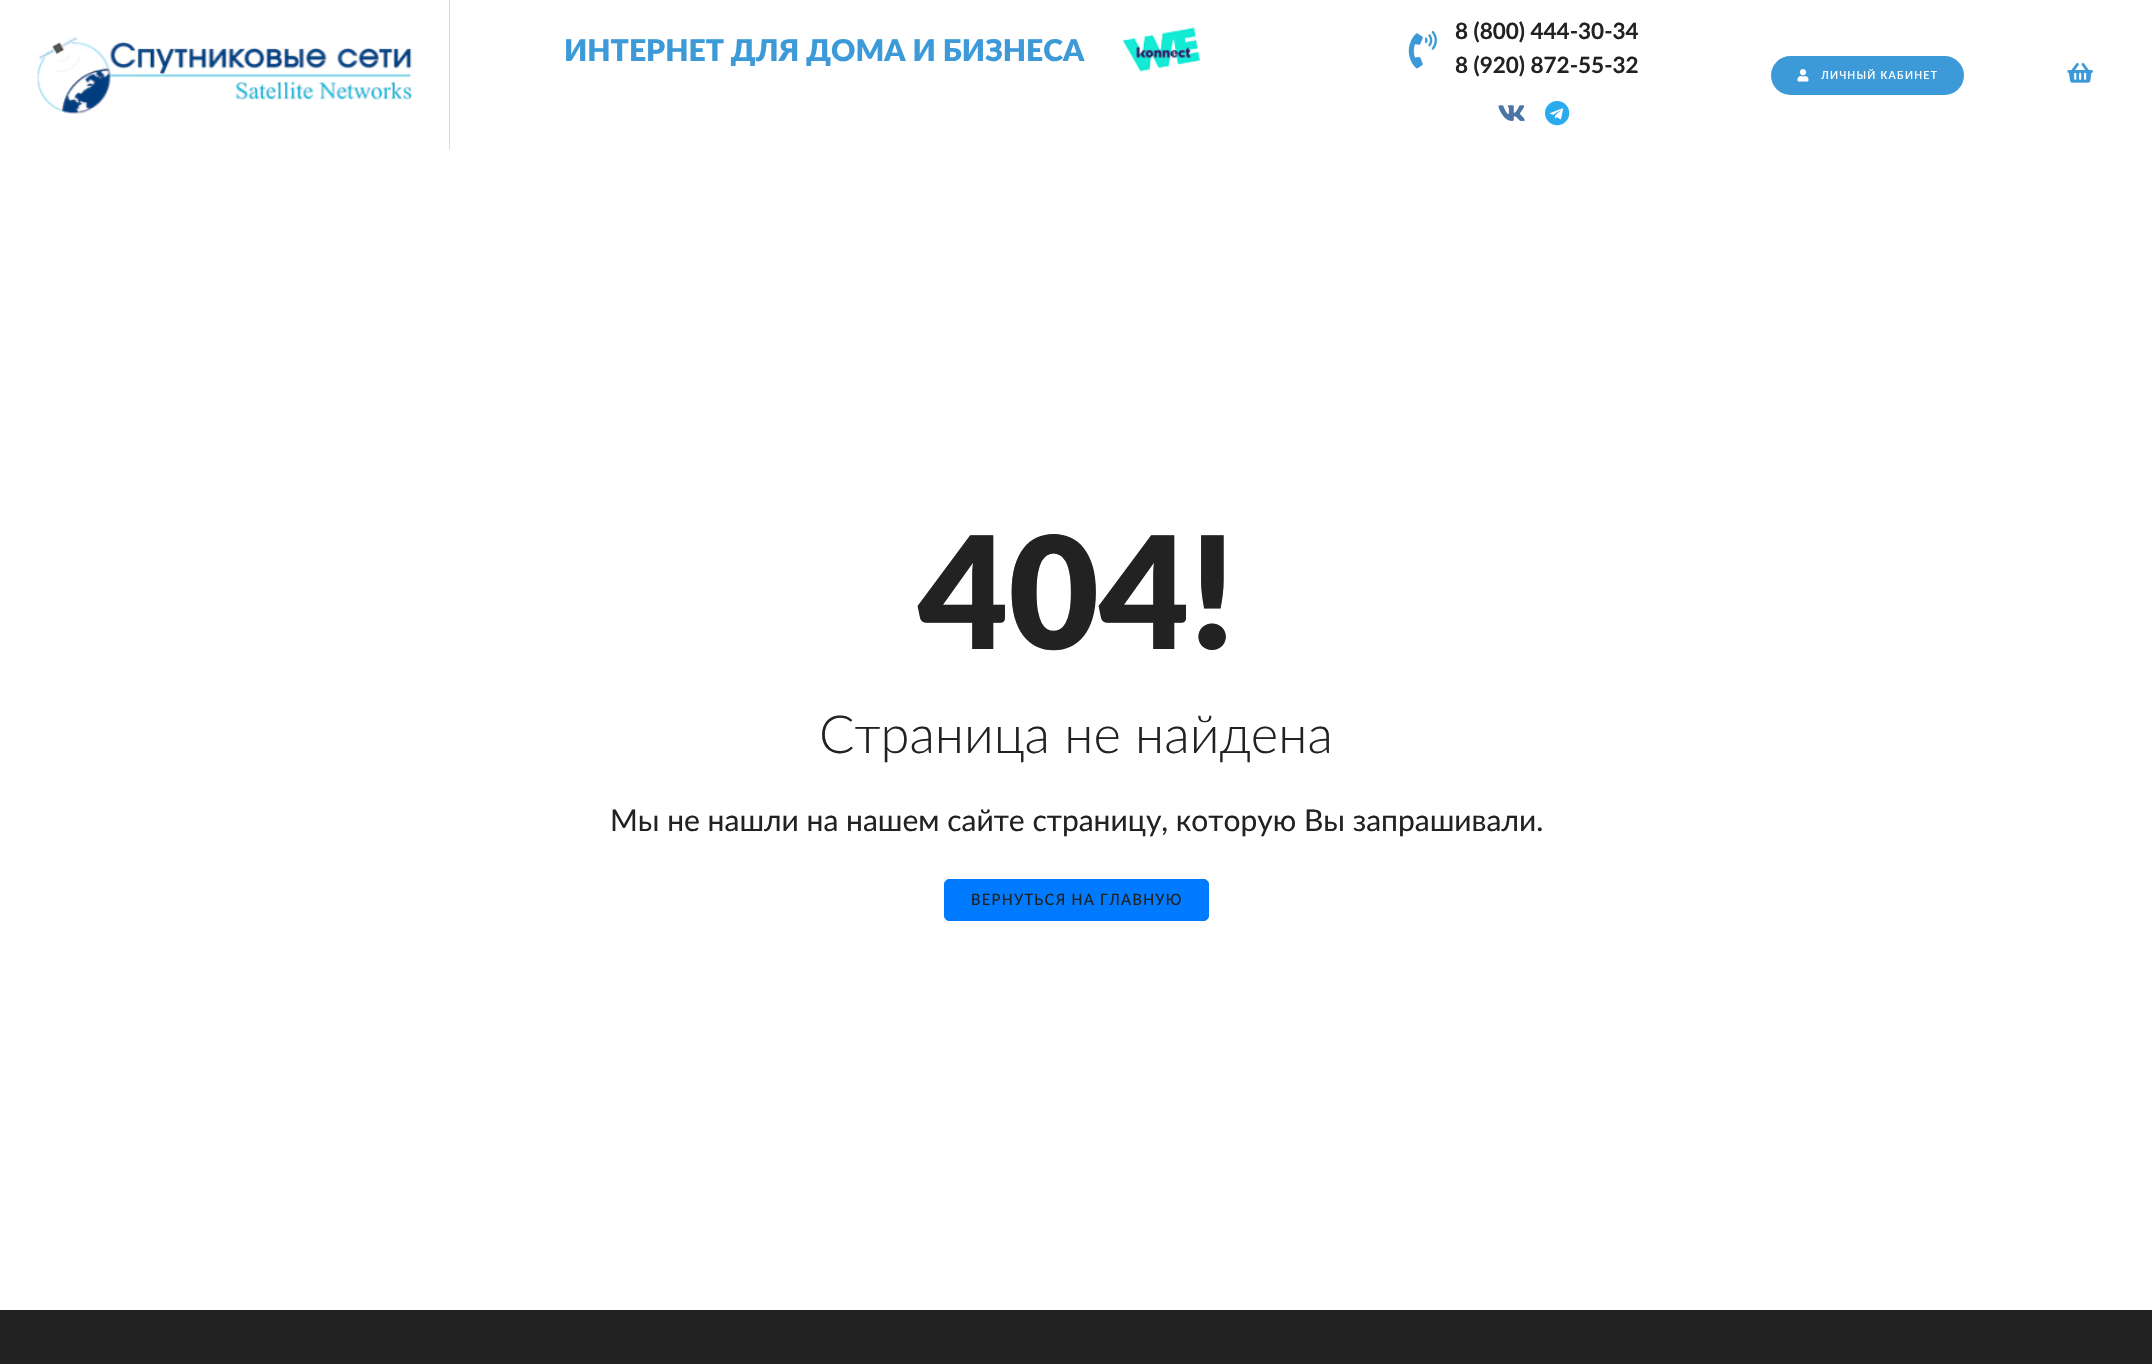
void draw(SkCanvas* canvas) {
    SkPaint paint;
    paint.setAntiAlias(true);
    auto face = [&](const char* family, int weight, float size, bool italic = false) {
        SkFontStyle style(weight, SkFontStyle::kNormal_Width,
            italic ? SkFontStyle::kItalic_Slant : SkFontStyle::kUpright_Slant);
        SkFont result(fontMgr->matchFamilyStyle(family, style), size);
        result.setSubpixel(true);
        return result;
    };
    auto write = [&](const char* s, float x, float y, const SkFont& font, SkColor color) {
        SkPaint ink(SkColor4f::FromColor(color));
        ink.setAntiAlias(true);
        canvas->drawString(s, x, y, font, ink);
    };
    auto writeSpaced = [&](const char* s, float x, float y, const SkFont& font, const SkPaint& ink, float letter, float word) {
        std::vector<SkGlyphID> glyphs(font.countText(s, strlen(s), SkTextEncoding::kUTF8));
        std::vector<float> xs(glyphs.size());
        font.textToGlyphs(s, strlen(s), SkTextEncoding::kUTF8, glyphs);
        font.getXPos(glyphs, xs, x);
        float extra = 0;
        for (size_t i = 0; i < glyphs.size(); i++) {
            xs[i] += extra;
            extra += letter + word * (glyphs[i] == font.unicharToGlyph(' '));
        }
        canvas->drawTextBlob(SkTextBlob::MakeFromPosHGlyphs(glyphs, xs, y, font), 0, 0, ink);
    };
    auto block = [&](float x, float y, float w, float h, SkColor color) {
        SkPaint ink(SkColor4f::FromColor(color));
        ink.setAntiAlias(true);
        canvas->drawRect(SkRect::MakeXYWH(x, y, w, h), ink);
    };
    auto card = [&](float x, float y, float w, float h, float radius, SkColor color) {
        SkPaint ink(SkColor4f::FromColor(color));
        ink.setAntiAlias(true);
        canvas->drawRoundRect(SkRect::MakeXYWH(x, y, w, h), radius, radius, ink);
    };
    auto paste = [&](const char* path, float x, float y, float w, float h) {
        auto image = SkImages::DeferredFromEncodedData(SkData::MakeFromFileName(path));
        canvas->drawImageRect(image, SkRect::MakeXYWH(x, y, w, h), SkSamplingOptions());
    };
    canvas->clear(SK_ColorWHITE);
    block(449, 0, 1, 150, SkColorSetRGB(220, 220, 220));
    paste("pic1.png", 37, 37, 375, 77);
    auto kFont1 = face("Lato", 900, 30);
    write("ИНТЕРНЕТ ДЛЯ ДОМА И БИЗНЕСА", 564, 61, kFont1, SkColorSetRGB(61, 154, 216));
    paste("pic2.png", 1122, 27, 78, 45);
    paste("pic3.png", 1408, 30, 29, 39);
    auto kFont2 = face("Lato", 700, 22.5f);
    write("8 (800) 444-30-34", 1455, 39, kFont2, SkColorSetRGB(34, 34, 34));
    write("8 (920) 872-55-32", 1455, 73, kFont2, SkColorSetRGB(34, 34, 34));
    paste("pic4.png", 1498, 105, 27, 16);
    paste("pic5.png", 1545, 101, 25, 25);
    card(1771, 56, 193, 39, 19.5f, SkColorSetRGB(61, 154, 216));
    paste("pic6.png", 1797, 69, 12, 13);
    auto kFont3 = face("Carlito", 400, 12.5f);
    paint.setColor(SK_ColorWHITE);
    writeSpaced("ЛИЧНЫЙ КАБИНЕТ", 1821, 79, kFont3, paint, 1.25f, 0);
    paste("pic7.png", 2067, 63, 26, 20);
    auto kFont4 = face("Lato", 900, 156);
    write("404!", 918, 649, kFont4, SkColorSetRGB(34, 34, 34));
    auto kFont5 = face("Lato", 300, 52.5f);
    write("Страница не найдена", 819, 753, kFont5, SkColorSetRGB(34, 34, 34));
    auto kFont6 = face("Lato", 400, 30);
    write("Мы не нашли на нашем сайте страницу, которую Вы запрашивали.", 610, 831, kFont6, SkColorSetRGB(34, 34, 34));
    paint.setColor(SkColorSetRGB(0, 123, 255));
    canvas->drawRoundRect(SkRect::MakeXYWH(944.5f, 879.5f, 264, 41), 4.5f, 4.5f, paint);
    paint.setStyle(SkPaint::kStroke_Style);
    paint.setStrokeWidth(1);
    canvas->drawRoundRect(SkRect::MakeXYWH(944.5f, 879.5f, 264, 41), 4.5f, 4.5f, paint);
    auto kFont7 = face("Carlito", 400, 17.5f);
    paint.setStyle(SkPaint::kFill_Style);
    paint.setColor(SkColorSetRGB(34, 34, 34));
    writeSpaced("ВЕРНУТЬСЯ НА ГЛАВНУЮ", 971, 905, kFont7, paint, 1.25f, 0);
    block(0, 1310, 2152, 54, SkColorSetRGB(34, 34, 34));
}
